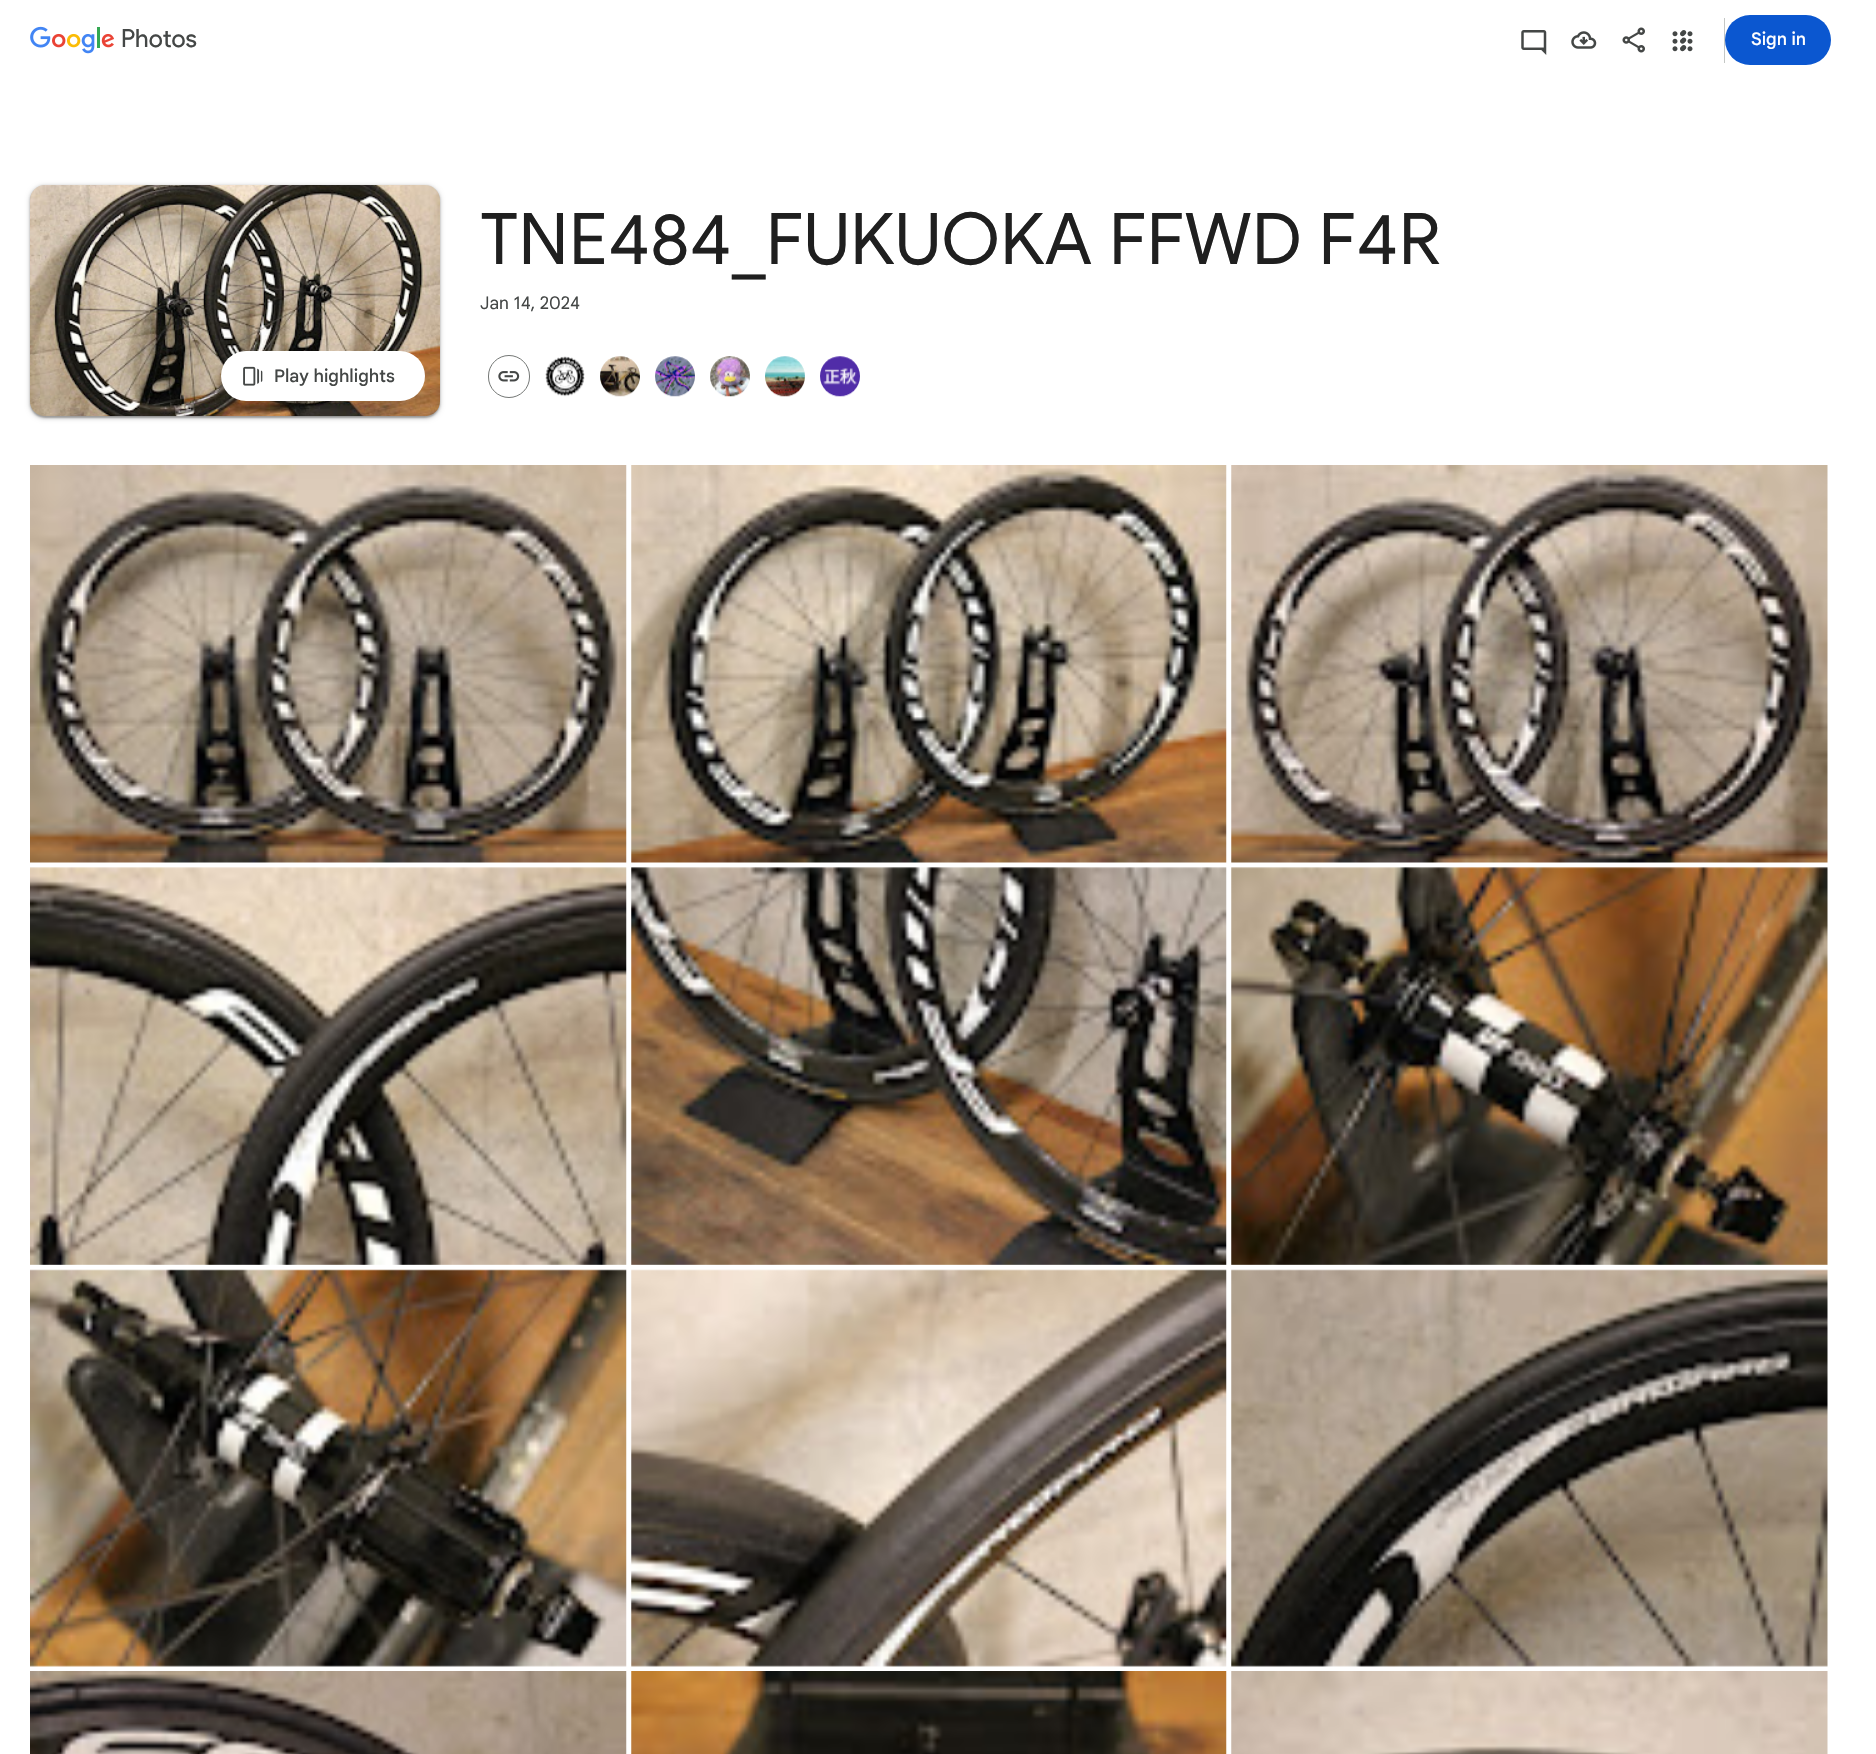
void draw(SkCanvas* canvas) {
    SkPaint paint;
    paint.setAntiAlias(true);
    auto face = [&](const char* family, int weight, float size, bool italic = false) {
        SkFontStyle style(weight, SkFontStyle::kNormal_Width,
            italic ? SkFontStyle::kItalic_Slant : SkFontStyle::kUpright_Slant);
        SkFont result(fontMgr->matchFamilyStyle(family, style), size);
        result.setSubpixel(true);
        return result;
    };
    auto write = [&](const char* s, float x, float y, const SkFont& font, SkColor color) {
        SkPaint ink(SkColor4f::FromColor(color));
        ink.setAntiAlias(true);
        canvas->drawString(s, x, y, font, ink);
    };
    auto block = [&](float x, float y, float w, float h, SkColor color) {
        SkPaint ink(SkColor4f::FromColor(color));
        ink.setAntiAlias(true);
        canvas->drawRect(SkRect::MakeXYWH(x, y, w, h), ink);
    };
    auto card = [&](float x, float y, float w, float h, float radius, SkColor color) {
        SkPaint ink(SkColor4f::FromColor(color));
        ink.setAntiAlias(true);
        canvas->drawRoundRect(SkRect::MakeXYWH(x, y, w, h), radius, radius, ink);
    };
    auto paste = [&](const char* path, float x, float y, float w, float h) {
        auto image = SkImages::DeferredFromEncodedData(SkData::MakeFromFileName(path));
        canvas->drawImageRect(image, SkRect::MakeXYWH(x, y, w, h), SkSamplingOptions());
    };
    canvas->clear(SK_ColorWHITE);
    paste("pic1.png", 30, 26, 84, 28);
    auto kFont1 = face("Product Sans", 400, 25);
    write("Photos", 121, 47, kFont1, SkColorSetRGB(68, 71, 70));
    paste("pic2.png", 1521, 30, 26, 25);
    paste("pic3.png", 1571, 31, 26, 18);
    paste("pic4.png", 1622, 27, 23, 26);
    paste("pic5.png", 1681, 30, 6, 20);
    block(1724, 18, 1, 45, SkColorSetRGB(196, 199, 197));
    auto kFont2 = face("Google Sans", 400, 71.25f);
    write("TNE484_FUKUOKA FFWD F4R", 480, 264, kFont2, SkColorSetRGB(31, 31, 31));
    auto kFont3 = face("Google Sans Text", 400, 17.5f);
    write("Jan 14, 2024", 480, 309, kFont3, SkColorSetRGB(68, 71, 70));
    paint.setStyle(SkPaint::kStroke_Style);
    paint.setStrokeWidth(1);
    paint.setColor(SkColorSetRGB(116, 119, 117));
    canvas->drawRoundRect(SkRect::MakeXYWH(488.5f, 355.5f, 41, 42), 20.5f, 20.5f, paint);
    paste("pic6.png", 498, 371, 22, 11);
    paste("pic7.png", 545, 356, 40, 41);
    paste("pic8.png", 600, 356, 40, 41);
    paste("pic9.png", 655, 356, 40, 41);
    paste("pic10.png", 710, 356, 40, 41);
    paste("pic11.png", 765, 356, 40, 41);
    paste("pic12.png", 820, 356, 40, 41);
    paint.setStyle(SkPaint::kFill_Style);
    paint.setColor(SkColorSetARGB(38, 0, 0, 0));
    paint.setMaskFilter(SkMaskFilter::MakeBlur(kNormal_SkBlurStyle, 2));
    canvas->drawRoundRect(SkRect::MakeXYWH(29, 185, 412, 234), 16, 16, paint);
    paint.setMaskFilter(nullptr);
    paint.setColor(SkColorSetARGB(77, 0, 0, 0));
    paint.setMaskFilter(SkMaskFilter::MakeBlur(kNormal_SkBlurStyle, 1));
    canvas->drawRoundRect(SkRect::MakeXYWH(30, 186, 410, 232), 15, 15, paint);
    paint.setMaskFilter(nullptr);
    paste("pic13.png", 30, 185, 410, 232);
    card(221, 351, 204, 50, 25, SK_ColorWHITE);
    paste("pic14.png", 243, 366, 20, 20);
    auto kFont4 = face("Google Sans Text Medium", 500, 17.5f);
    write("Play highlights", 274, 382, kFont4, SkColorSetRGB(68, 71, 70));
    paste("pic15.png", 30, 465, 597, 398);
    paste("pic16.png", 631, 465, 596, 398);
    paste("pic17.png", 1231, 465, 597, 398);
    paste("pic18.png", 30, 867, 597, 398);
    paste("pic19.png", 631, 867, 596, 398);
    paste("pic20.png", 1231, 867, 597, 398);
    paste("pic21.png", 30, 1269, 597, 398);
    paste("pic22.png", 631, 1269, 596, 398);
    paste("pic23.png", 1231, 1269, 597, 398);
    paste("pic24.png", 30, 1671, 597, 83);
    paste("pic25.png", 631, 1671, 596, 83);
    paste("pic26.png", 1231, 1671, 597, 83);
    paste("pic27.png", 1672, 31, 21, 21);
    card(1725, 15, 106, 50, 25, SkColorSetRGB(11, 87, 208));
    write("Sign in", 1751, 45, kFont4, SK_ColorWHITE);
}
